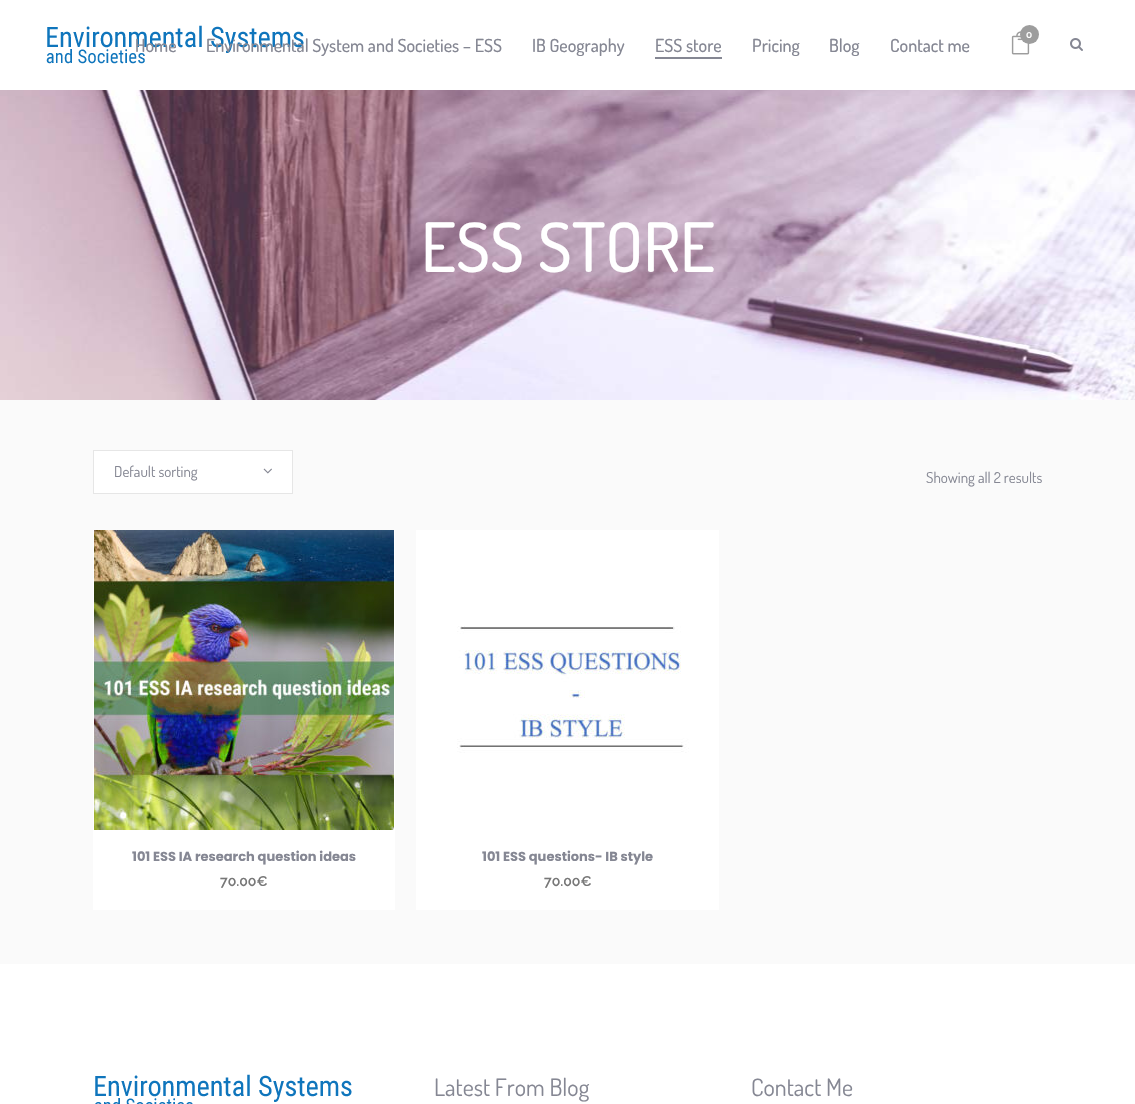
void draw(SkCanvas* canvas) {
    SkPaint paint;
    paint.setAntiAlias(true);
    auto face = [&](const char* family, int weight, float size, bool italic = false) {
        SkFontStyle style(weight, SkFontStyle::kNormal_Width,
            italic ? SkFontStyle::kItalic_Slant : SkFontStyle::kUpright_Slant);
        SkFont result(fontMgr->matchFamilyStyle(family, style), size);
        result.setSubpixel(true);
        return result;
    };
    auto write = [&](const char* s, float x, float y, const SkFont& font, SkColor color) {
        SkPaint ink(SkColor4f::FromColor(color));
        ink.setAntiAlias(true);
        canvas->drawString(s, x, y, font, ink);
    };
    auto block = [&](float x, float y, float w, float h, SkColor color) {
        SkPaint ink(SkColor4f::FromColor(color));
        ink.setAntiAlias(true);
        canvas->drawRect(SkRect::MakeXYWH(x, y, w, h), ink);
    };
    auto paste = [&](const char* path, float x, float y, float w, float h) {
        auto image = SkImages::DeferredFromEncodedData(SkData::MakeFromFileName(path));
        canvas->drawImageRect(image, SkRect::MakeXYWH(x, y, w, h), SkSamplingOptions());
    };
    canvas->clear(SkColorSetRGB(250, 250, 250));
    block(0, 0, 1135, 90, SK_ColorWHITE);
    paste("pic1.png", 46, 25, 258, 39);
    paste("pic2.png", 1011, 31, 19, 24);
    paint.setColor(SkColorSetRGB(157, 157, 157));
    canvas->drawCircle(1029.5f, 34.5f, 9.5f, paint);
    auto kFont1 = face("Raleway", 600, 10);
    write("0", 1026, 38, kFont1, SK_ColorWHITE);
    paste("pic3.png", 1070, 38, 13, 13);
    auto kFont2 = face("Dosis", 500, 18);
    write("Home", 135, 52, kFont2, SkColorSetRGB(133, 135, 147));
    write("Environmental System and Societies – ESS", 206, 52, kFont2, SkColorSetRGB(133, 135, 147));
    write("IB Geography", 532, 52, kFont2, SkColorSetRGB(133, 135, 147));
    write("ESS store", 655, 52, kFont2, SkColorSetRGB(133, 135, 147));
    block(655, 57, 67, 2, SkColorSetRGB(133, 135, 147));
    write("Pricing", 752, 52, kFont2, SkColorSetRGB(133, 135, 147));
    write("Blog", 829, 52, kFont2, SkColorSetRGB(133, 135, 147));
    write("Contact me", 890, 52, kFont2, SkColorSetRGB(133, 135, 147));
    paste("pic4.png", 0, 90, 1135, 310);
    auto kFont3 = face("Dosis", 500, 68);
    write("ESS STORE", 421, 272, kFont3, SK_ColorWHITE);
    paint.setColor(SK_ColorWHITE);
    canvas->drawRect(SkRect::MakeXYWH(93.5f, 450.5f, 199, 43), paint);
    paint.setStyle(SkPaint::kStroke_Style);
    paint.setStrokeWidth(1);
    paint.setColor(SkColorSetRGB(230, 230, 230));
    canvas->drawRect(SkRect::MakeXYWH(93.5f, 450.5f, 199, 43), paint);
    auto kFont4 = face("Dosis", 400, 15);
    write("Default sorting", 114, 477, kFont4, SkColorSetRGB(133, 135, 147));
    paste("pic5.png", 263, 468, 9, 6);
    write("Showing all 2 results", 926, 483, kFont4, SkColorSetRGB(133, 135, 147));
    block(93, 530, 302, 380, SK_ColorWHITE);
    paste("pic6.png", 94, 530, 300, 300);
    auto kFont5 = face("Poppins", 700, 13);
    write("101 ESS IA research question ideas", 132, 861, kFont5, SkColorSetRGB(133, 135, 147));
    auto kFont6 = face("Raleway", 600, 14);
    write("70.00€", 220, 886, kFont6, SkColorSetRGB(119, 119, 119));
    block(416, 530, 303, 380, SK_ColorWHITE);
    paste("pic7.png", 457, 626, 232, 127);
    write("101 ESS questions- IB style", 482, 861, kFont5, SkColorSetRGB(133, 135, 147));
    write("70.00€", 544, 886, kFont6, SkColorSetRGB(119, 119, 119));
    block(0, 964, 1135, 140, SK_ColorWHITE);
    paste("pic8.png", 95, 1074, 257, 30);
    auto kFont7 = face("Dosis", 400, 24);
    write("Latest From Blog", 434, 1096, kFont7, SkColorSetRGB(133, 135, 147));
    write("Contact Me", 751, 1096, kFont7, SkColorSetRGB(133, 135, 147));
}
